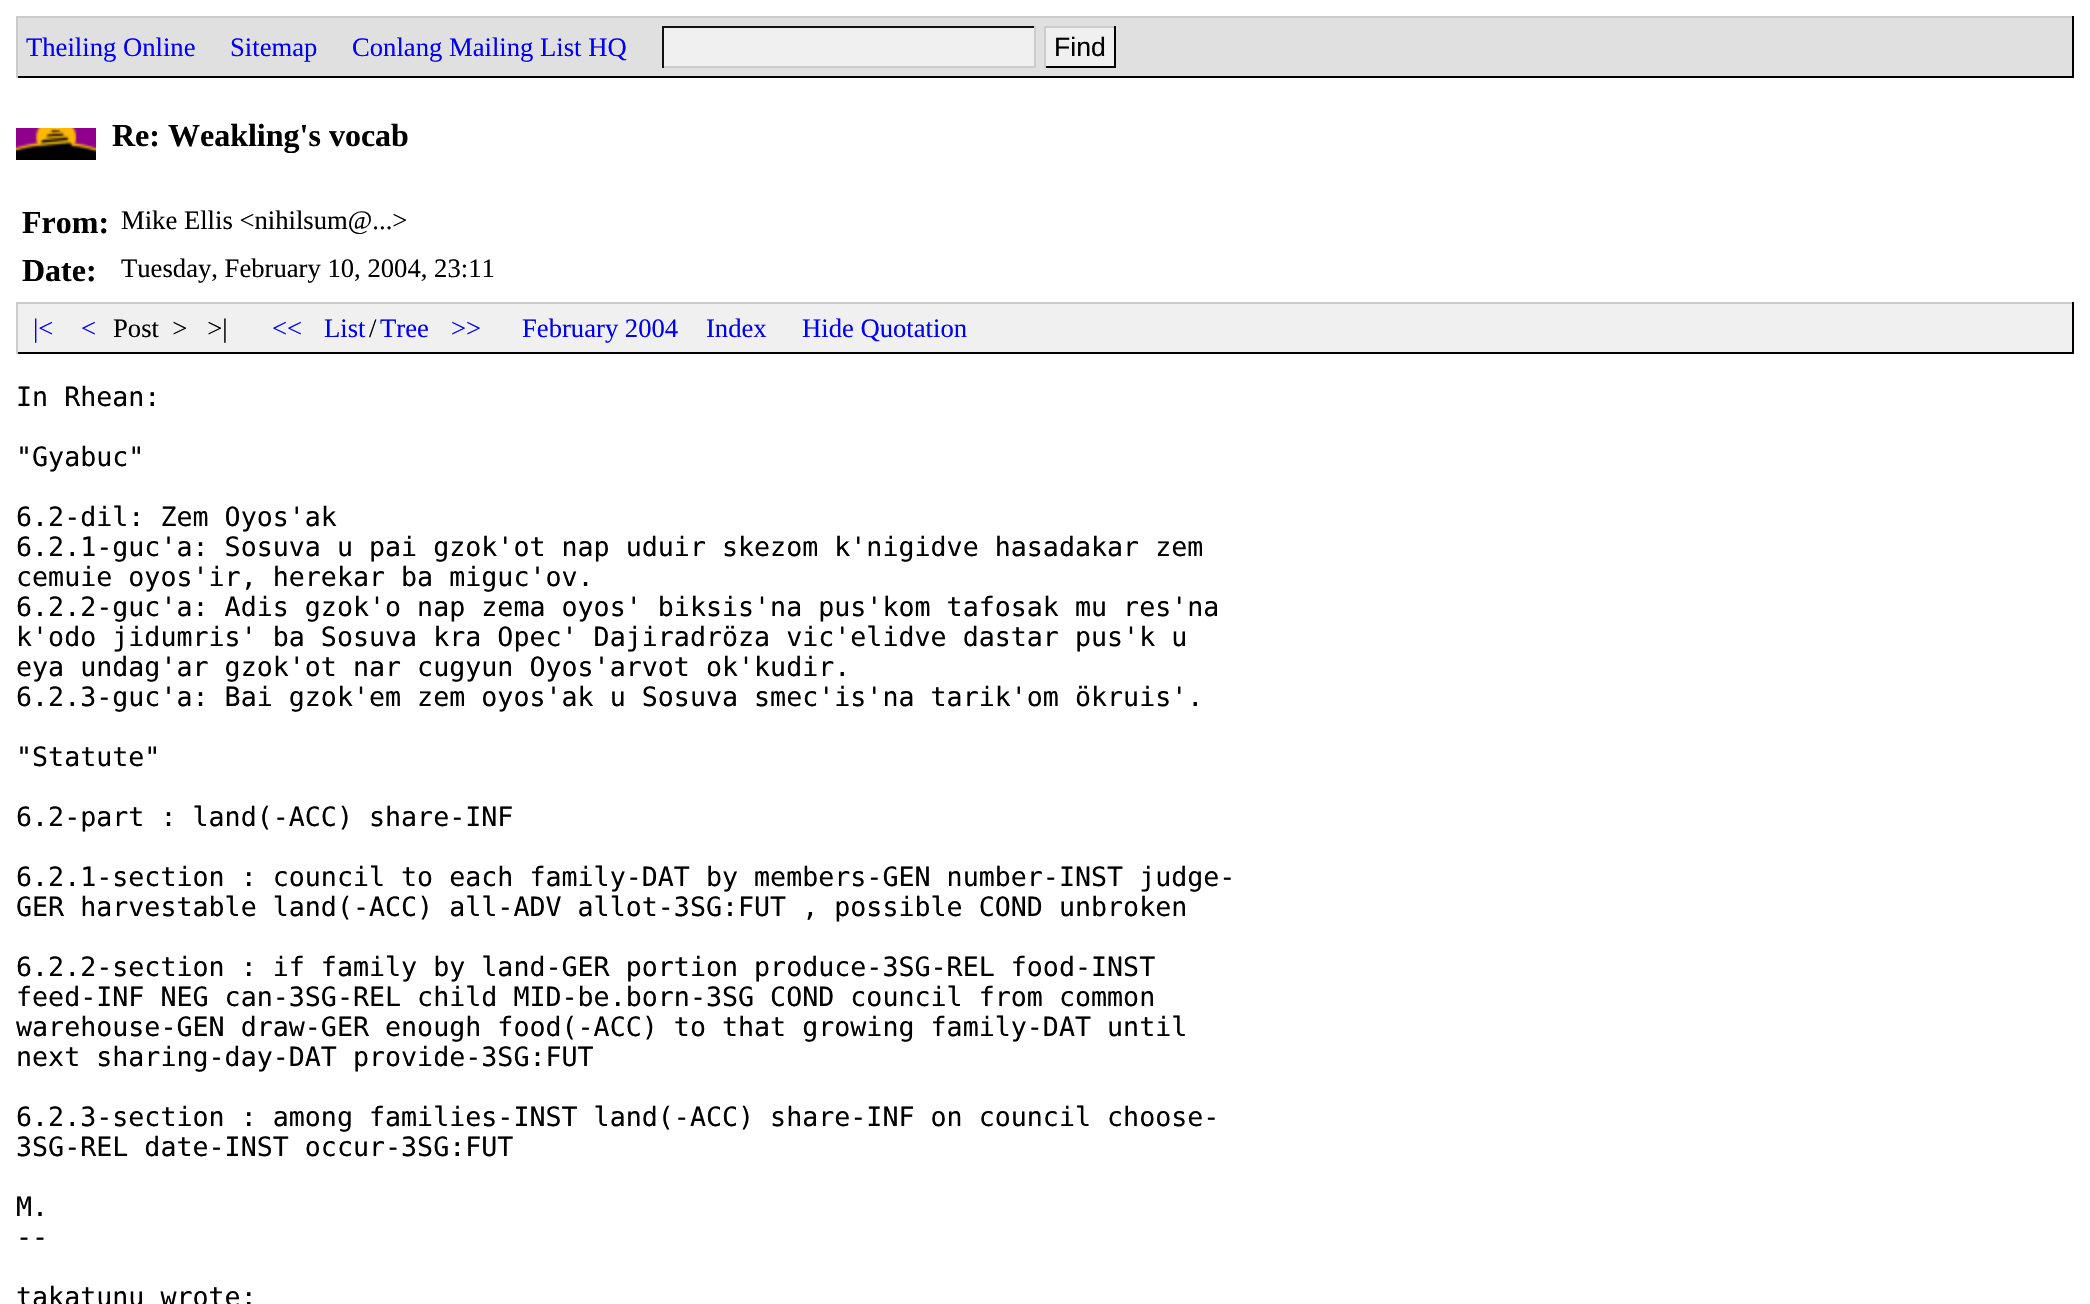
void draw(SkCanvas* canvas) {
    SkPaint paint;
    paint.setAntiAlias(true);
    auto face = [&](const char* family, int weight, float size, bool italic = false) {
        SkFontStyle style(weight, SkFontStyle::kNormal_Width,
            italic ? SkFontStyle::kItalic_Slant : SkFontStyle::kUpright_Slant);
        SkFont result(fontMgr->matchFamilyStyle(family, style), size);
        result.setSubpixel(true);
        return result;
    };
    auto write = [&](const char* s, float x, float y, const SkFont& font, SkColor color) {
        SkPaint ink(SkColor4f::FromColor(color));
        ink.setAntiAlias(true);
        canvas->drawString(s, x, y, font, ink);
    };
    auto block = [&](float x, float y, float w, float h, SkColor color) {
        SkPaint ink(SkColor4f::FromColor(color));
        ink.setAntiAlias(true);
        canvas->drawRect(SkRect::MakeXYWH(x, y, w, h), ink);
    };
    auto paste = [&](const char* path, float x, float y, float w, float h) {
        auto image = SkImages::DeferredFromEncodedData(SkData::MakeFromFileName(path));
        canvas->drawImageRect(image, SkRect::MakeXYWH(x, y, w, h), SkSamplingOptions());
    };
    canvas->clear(SK_ColorWHITE);
    block(18, 18, 2054, 58, SkColorSetRGB(224, 224, 224));
    block(16, 16, 2058, 2, SkColorSetRGB(204, 204, 204));
    block(2072, 16, 2, 62, SK_ColorBLACK);
    block(16, 76, 2058, 2, SK_ColorBLACK);
    block(16, 16, 2, 62, SkColorSetRGB(204, 204, 204));
    auto kFont1 = face("Liberation Serif", 400, 26.65f);
    write("Theiling Online", 26, 56, kFont1, SkColorSetRGB(0, 0, 240));
    write("Sitemap", 230, 56, kFont1, SkColorSetRGB(0, 0, 240));
    write("Conlang Mailing List HQ", 352, 56, kFont1, SkColorSetRGB(0, 0, 240));
    block(664, 28, 370, 38, SkColorSetRGB(240, 240, 240));
    block(662, 26, 374, 2, SkColorSetRGB(17, 17, 17));
    block(1034, 26, 2, 42, SkColorSetRGB(204, 204, 204));
    block(662, 66, 374, 2, SkColorSetRGB(204, 204, 204));
    block(662, 26, 2, 42, SkColorSetRGB(17, 17, 17));
    block(1046, 28, 68, 38, SkColorSetRGB(240, 240, 240));
    block(1044, 26, 72, 2, SkColorSetRGB(204, 204, 204));
    block(1114, 26, 2, 42, SK_ColorBLACK);
    block(1044, 66, 72, 2, SK_ColorBLACK);
    block(1044, 26, 2, 42, SkColorSetRGB(204, 204, 204));
    auto kFont2 = face("Liberation Sans", 400, 26.65f);
    write("Find", 1054, 56, kFont2, SK_ColorBLACK);
    paste("pic1.png", 16, 128, 80, 32);
    auto kFont3 = face("Liberation Serif", 700, 32);
    write("Re: Weakling's vocab", 112, 146, kFont3, SK_ColorBLACK);
    write("From:", 22, 233, kFont3, SK_ColorBLACK);
    write("Mike Ellis <nihilsum@...>", 121, 229, kFont1, SK_ColorBLACK);
    write("Date:", 22, 281, kFont3, SK_ColorBLACK);
    write("Tuesday, February 10, 2004, 23:11", 121, 277, kFont1, SK_ColorBLACK);
    block(18, 304, 2054, 48, SkColorSetRGB(240, 240, 240));
    block(16, 302, 2058, 2, SkColorSetRGB(204, 204, 204));
    block(2072, 302, 2, 52, SK_ColorBLACK);
    block(16, 352, 2058, 2, SK_ColorBLACK);
    block(16, 302, 2, 52, SkColorSetRGB(204, 204, 204));
    write("|<", 33, 337, kFont1, SkColorSetRGB(0, 0, 240));
    write("<", 81, 337, kFont1, SkColorSetRGB(0, 0, 240));
    write("Post  >   >|", 113, 337, kFont1, SK_ColorBLACK);
    write("<<", 272, 337, kFont1, SkColorSetRGB(0, 0, 240));
    write("List", 324, 337, kFont1, SkColorSetRGB(0, 0, 240));
    write("/", 369, 337, kFont1, SK_ColorBLACK);
    write("Tree", 380, 337, kFont1, SkColorSetRGB(0, 0, 240));
    write(">>", 451, 337, kFont1, SkColorSetRGB(0, 0, 240));
    write("February 2004", 522, 337, kFont1, SkColorSetRGB(0, 0, 240));
    write("Index", 706, 337, kFont1, SkColorSetRGB(0, 0, 240));
    write("Hide Quotation", 802, 337, kFont1, SkColorSetRGB(0, 0, 240));
    auto kFont4 = face("DejaVu Sans Mono", 400, 26.65f);
    write("In Rhean:", 16, 406, kFont4, SK_ColorBLACK);
    write("\"Gyabuc\"", 16, 466, kFont4, SK_ColorBLACK);
    write("6.2-dil: Zem Oyos'ak", 16, 526, kFont4, SK_ColorBLACK);
    write("6.2.1-guc'a: Sosuva u pai gzok'ot nap uduir skezom k'nigidve hasadakar zem", 16, 556, kFont4, SK_ColorBLACK);
    write("cemuie oyos'ir, herekar ba miguc'ov.", 16, 586, kFont4, SK_ColorBLACK);
    write("6.2.2-guc'a: Adis gzok'o nap zema oyos' biksis'na pus'kom tafosak mu res'na", 16, 616, kFont4, SK_ColorBLACK);
    write("k'odo jidumris' ba Sosuva kra Opec' Dajiradröza vic'elidve dastar pus'k u", 16, 646, kFont4, SK_ColorBLACK);
    write("eya undag'ar gzok'ot nar cugyun Oyos'arvot ok'kudir.", 16, 676, kFont4, SK_ColorBLACK);
    write("6.2.3-guc'a: Bai gzok'em zem oyos'ak u Sosuva smec'is'na tarik'om ökruis'.", 16, 706, kFont4, SK_ColorBLACK);
    write("\"Statute\"", 16, 766, kFont4, SK_ColorBLACK);
    write("6.2-part : land(-ACC) share-INF", 16, 826, kFont4, SK_ColorBLACK);
    write("6.2.1-section : council to each family-DAT by members-GEN number-INST judge-", 16, 886, kFont4, SK_ColorBLACK);
    write("GER harvestable land(-ACC) all-ADV allot-3SG:FUT , possible COND unbroken", 16, 916, kFont4, SK_ColorBLACK);
    write("6.2.2-section : if family by land-GER portion produce-3SG-REL food-INST", 16, 976, kFont4, SK_ColorBLACK);
    write("feed-INF NEG can-3SG-REL child MID-be.born-3SG COND council from common", 16, 1006, kFont4, SK_ColorBLACK);
    write("warehouse-GEN draw-GER enough food(-ACC) to that growing family-DAT until", 16, 1036, kFont4, SK_ColorBLACK);
    write("next sharing-day-DAT provide-3SG:FUT", 16, 1066, kFont4, SK_ColorBLACK);
    write("6.2.3-section : among families-INST land(-ACC) share-INF on council choose-", 16, 1126, kFont4, SK_ColorBLACK);
    write("3SG-REL date-INST occur-3SG:FUT", 16, 1156, kFont4, SK_ColorBLACK);
    write("M.", 16, 1216, kFont4, SK_ColorBLACK);
    write("--", 16, 1246, kFont4, SK_ColorBLACK);
    write("takatunu wrote:", 16, 1306, kFont4, SK_ColorBLACK);
}
